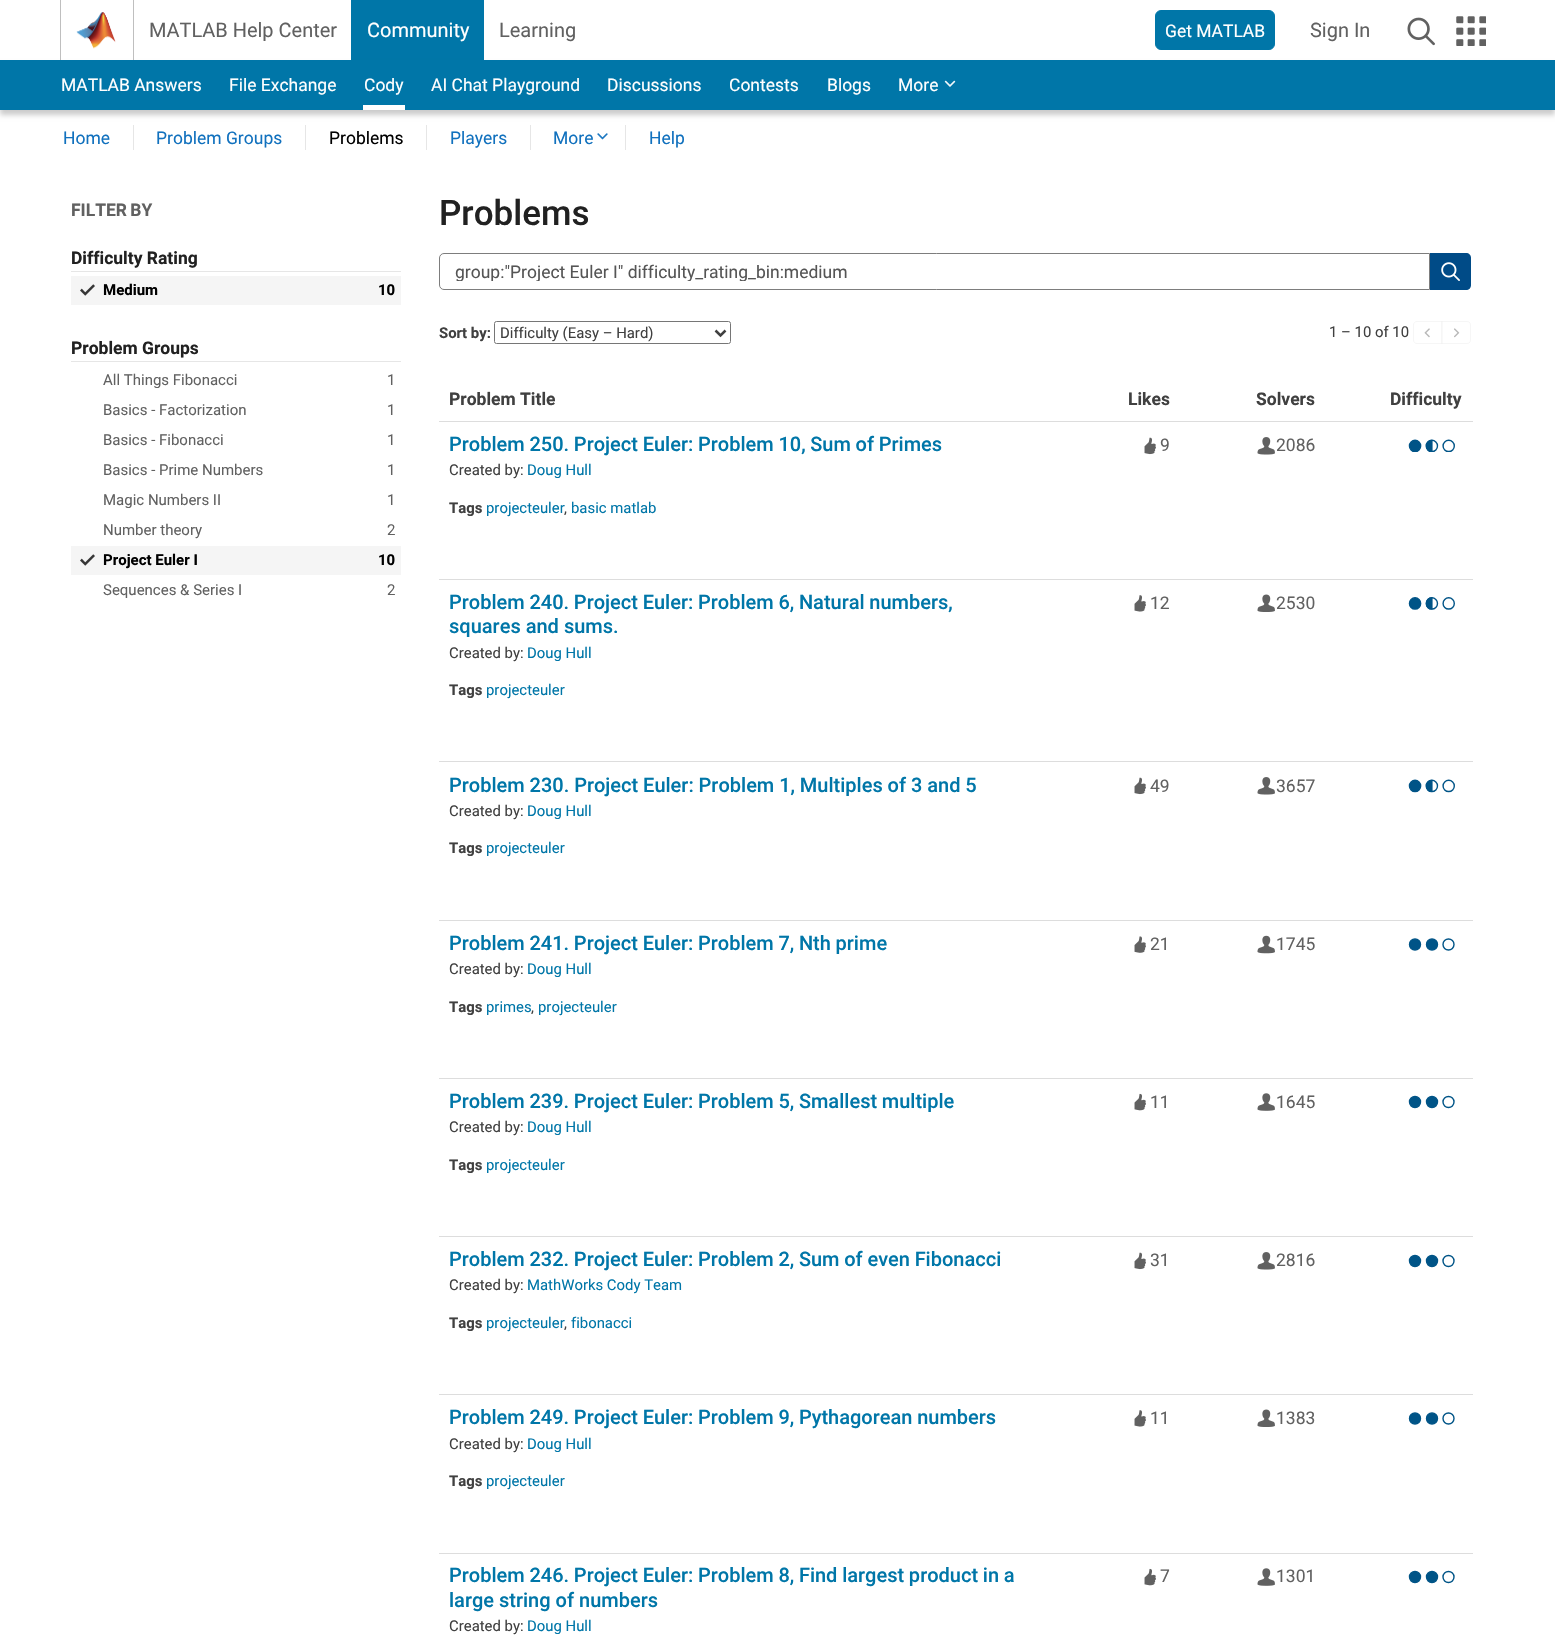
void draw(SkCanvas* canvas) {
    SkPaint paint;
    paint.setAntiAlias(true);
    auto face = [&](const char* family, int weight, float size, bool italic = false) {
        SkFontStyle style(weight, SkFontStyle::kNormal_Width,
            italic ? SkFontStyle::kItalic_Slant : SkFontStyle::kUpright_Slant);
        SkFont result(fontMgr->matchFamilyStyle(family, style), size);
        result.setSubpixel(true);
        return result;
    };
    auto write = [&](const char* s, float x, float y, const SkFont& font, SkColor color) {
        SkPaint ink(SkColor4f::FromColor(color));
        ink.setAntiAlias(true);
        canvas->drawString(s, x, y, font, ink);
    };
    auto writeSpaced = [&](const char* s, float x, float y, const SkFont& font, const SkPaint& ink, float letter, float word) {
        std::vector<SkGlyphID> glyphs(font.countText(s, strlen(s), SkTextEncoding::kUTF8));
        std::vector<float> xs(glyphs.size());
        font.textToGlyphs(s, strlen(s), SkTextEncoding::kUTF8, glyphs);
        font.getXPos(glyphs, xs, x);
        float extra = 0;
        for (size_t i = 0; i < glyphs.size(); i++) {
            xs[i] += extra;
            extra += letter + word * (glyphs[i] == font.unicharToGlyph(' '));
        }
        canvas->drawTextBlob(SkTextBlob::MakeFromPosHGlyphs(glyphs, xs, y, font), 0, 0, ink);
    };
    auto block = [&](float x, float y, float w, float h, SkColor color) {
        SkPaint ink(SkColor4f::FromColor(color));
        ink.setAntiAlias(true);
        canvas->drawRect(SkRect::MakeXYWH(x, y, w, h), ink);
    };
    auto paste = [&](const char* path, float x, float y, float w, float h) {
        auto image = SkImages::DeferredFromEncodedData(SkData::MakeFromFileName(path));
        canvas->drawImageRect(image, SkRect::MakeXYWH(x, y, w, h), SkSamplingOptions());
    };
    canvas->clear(SK_ColorWHITE);
    block(133, 0, 1, 60, SkColorSetRGB(191, 191, 191));
    block(60, 0, 1, 60, SkColorSetRGB(191, 191, 191));
    paste("pic1.png", 76, 12, 40, 37);
    auto kFont1 = face("Roboto", 400, 20);
    write("MATLAB Help Center", 149, 37, kFont1, SkColorSetRGB(97, 97, 97));
    block(351, 0, 133, 60, SkColorSetRGB(0, 118, 168));
    write("Community", 367, 37, kFont1, SK_ColorWHITE);
    write("Learning", 499, 37, kFont1, SkColorSetRGB(97, 97, 97));
    paint.setColor(SkColorSetRGB(0, 118, 168));
    canvas->drawRoundRect(SkRect::MakeXYWH(1155.5f, 10.5f, 119, 39), 5.5f, 5.5f, paint);
    paint.setStyle(SkPaint::kStroke_Style);
    paint.setStrokeWidth(1);
    canvas->drawRoundRect(SkRect::MakeXYWH(1155.5f, 10.5f, 119, 39), 5.5f, 5.5f, paint);
    auto kFont2 = face("Roboto", 400, 17.5f);
    write("Get MATLAB", 1165, 37, kFont2, SK_ColorWHITE);
    write("Sign In", 1310, 37, kFont1, SkColorSetRGB(97, 97, 97));
    paste("pic2.png", 1407, 17, 28, 29);
    paste("pic3.png", 1456, 16, 30, 30);
    paint.setStyle(SkPaint::kFill_Style);
    paint.setColor(SkColorSetARGB(51, 0, 0, 0));
    paint.setMaskFilter(SkMaskFilter::MakeBlur(kNormal_SkBlurStyle, 2.5f));
    canvas->drawRect(SkRect::MakeXYWH(0, 65, 1555, 50), paint);
    paint.setMaskFilter(nullptr);
    block(0, 60, 1555, 50, SkColorSetRGB(0, 118, 168));
    write("MATLAB Answers", 61, 91, kFont2, SK_ColorWHITE);
    write("File Exchange", 229, 91, kFont2, SK_ColorWHITE);
    block(363, 105, 42, 5, SK_ColorWHITE);
    write("Cody", 364, 91, kFont2, SK_ColorWHITE);
    write("AI Chat Playground", 431, 91, kFont2, SK_ColorWHITE);
    write("Discussions", 607, 91, kFont2, SK_ColorWHITE);
    write("Contests", 729, 91, kFont2, SK_ColorWHITE);
    write("Blogs", 827, 91, kFont2, SK_ColorWHITE);
    write("More", 898, 91, kFont2, SK_ColorWHITE);
    paste("pic4.png", 944, 80, 12, 7);
    write("Home", 63, 144, kFont2, SkColorSetRGB(17, 113, 190));
    block(133, 125, 1, 25, SkColorSetRGB(230, 230, 230));
    write("Problem Groups", 156, 144, kFont2, SkColorSetRGB(17, 113, 190));
    block(305, 125, 1, 25, SkColorSetRGB(230, 230, 230));
    write("Problems", 329, 144, kFont2, SK_ColorBLACK);
    block(426, 125, 1, 25, SkColorSetRGB(230, 230, 230));
    write("Players", 450, 144, kFont2, SkColorSetRGB(17, 113, 190));
    block(530, 125, 1, 25, SkColorSetRGB(230, 230, 230));
    write("More", 553, 144, kFont2, SkColorSetRGB(17, 113, 190));
    paste("pic5.png", 597, 133, 11, 7);
    block(625, 125, 1, 25, SkColorSetRGB(230, 230, 230));
    write("Help", 649, 144, kFont2, SkColorSetRGB(17, 113, 190));
    auto kFont3 = face("Roboto", 700, 17.5f);
    paint.setColor(SkColorSetRGB(97, 97, 97));
    writeSpaced("FILTER BY", 71, 216, kFont3, paint, 0, -1);
    block(71, 271, 330, 1, SkColorSetRGB(230, 230, 230));
    write("Difficulty Rating", 71, 264, kFont3, SkColorSetRGB(33, 33, 33));
    block(71, 276, 330, 29, SkColorSetRGB(245, 245, 245));
    paste("pic6.png", 80, 284, 15, 12);
    auto kFont4 = face("Roboto", 700, 15);
    write("Medium", 103, 295, kFont4, SK_ColorBLACK);
    write("10", 378, 295, kFont4, SK_ColorBLACK);
    block(71, 361, 330, 1, SkColorSetRGB(230, 230, 230));
    write("Problem Groups", 71, 354, kFont3, SkColorSetRGB(33, 33, 33));
    auto kFont5 = face("Roboto", 400, 15);
    write("All Things Fibonacci", 103, 385, kFont5, SkColorSetRGB(97, 97, 97));
    write("1", 387, 385, kFont5, SkColorSetRGB(97, 97, 97));
    write("Basics - Factorization", 103, 415, kFont5, SkColorSetRGB(97, 97, 97));
    write("1", 387, 415, kFont5, SkColorSetRGB(97, 97, 97));
    write("Basics - Fibonacci", 103, 445, kFont5, SkColorSetRGB(97, 97, 97));
    write("1", 387, 445, kFont5, SkColorSetRGB(97, 97, 97));
    write("Basics - Prime Numbers", 103, 475, kFont5, SkColorSetRGB(97, 97, 97));
    write("1", 387, 475, kFont5, SkColorSetRGB(97, 97, 97));
    write("Magic Numbers II", 103, 505, kFont5, SkColorSetRGB(97, 97, 97));
    write("1", 387, 505, kFont5, SkColorSetRGB(97, 97, 97));
    write("Number theory", 103, 535, kFont5, SkColorSetRGB(97, 97, 97));
    write("2", 387, 535, kFont5, SkColorSetRGB(97, 97, 97));
    block(71, 546, 330, 29, SkColorSetRGB(245, 245, 245));
    paste("pic6.png", 80, 554, 15, 12);
    write("Project Euler I", 103, 565, kFont4, SK_ColorBLACK);
    write("10", 378, 565, kFont4, SK_ColorBLACK);
    write("Sequences & Series I", 103, 595, kFont5, SkColorSetRGB(97, 97, 97));
    write("2", 387, 595, kFont5, SkColorSetRGB(97, 97, 97));
    auto kFont6 = face("Roboto", 500, 35);
    write("Problems", 439, 225, kFont6, SkColorSetRGB(33, 33, 33));
    paint.setStyle(SkPaint::kStroke_Style);
    paint.setColor(SkColorSetRGB(125, 125, 125));
    canvas->drawPath(SkPathBuilder().moveTo(444, 253.5f).lineTo(1429.5f, 253.5f).lineTo(1429.5f, 289.5f).lineTo(444, 289.5f).cubicTo(441.5f, 289.5f, 439.5f, 287.5f, 439.5f, 285).lineTo(439.5f, 258).cubicTo(439.5f, 255.5f, 441.5f, 253.5f, 444, 253.5f).close().detach(), paint);
    canvas->save();
    canvas->clipRect(SkRect::MakeXYWH(455, 261, 936, 20));
    write("group:\"Project Euler I\" difficulty_rating_bin:medium", 455, 278, kFont2, SkColorSetRGB(85, 85, 85));
    canvas->restore();
    paint.setStyle(SkPaint::kFill_Style);
    paint.setColor(SkColorSetRGB(0, 75, 135));
    canvas->drawPath(SkPathBuilder().moveTo(1430, 253).lineTo(1466, 253).cubicTo(1469, 253, 1471, 255, 1471, 258).lineTo(1471, 285).cubicTo(1471, 288, 1469, 290, 1466, 290).lineTo(1430, 290).close().detach(), paint);
    paste("pic7.png", 1441, 262, 19, 19);
    auto kFont7 = face("Roboto", 700, 14.9f);
    write("Sort by:", 439, 338, kFont7, SkColorSetRGB(64, 64, 64));
    paint.setStyle(SkPaint::kStroke_Style);
    paint.setColor(SkColorSetRGB(118, 118, 118));
    canvas->drawRoundRect(SkRect::MakeXYWH(494.5f, 321.5f, 236, 22), 2, 2, paint);
    paint.setStrokeWidth(2.5f);
    paint.setColor(SkColorSetRGB(64, 64, 64));
    canvas->drawPath(SkPathBuilder().moveTo(715.5f, 330.5f).lineTo(720.5f, 335.5f).lineTo(725.5f, 330.5f).detach(), paint);
    auto kFont8 = face("Roboto", 400, 14.9f);
    write("Difficulty (Easy – Hard)", 500, 338, kFont8, SkColorSetRGB(64, 64, 64));
    write("1 – 10 of 10", 1329, 337, kFont8, SkColorSetRGB(64, 64, 64));
    paint.setStrokeWidth(1);
    paint.setColor(SkColorSetRGB(246, 246, 246));
    canvas->drawPath(SkPathBuilder().moveTo(1417, 321.5f).lineTo(1442.5f, 321.5f).lineTo(1442.5f, 343.5f).lineTo(1417, 343.5f).cubicTo(1415, 343.5f, 1413.5f, 342, 1413.5f, 340).lineTo(1413.5f, 325).cubicTo(1413.5f, 323, 1415, 321.5f, 1417, 321.5f).close().detach(), paint);
    paste("pic8.png", 1424, 328, 6, 10);
    paint.setStyle(SkPaint::kFill_Style);
    paint.setColor(SkColorSetARGB(89, 255, 255, 255));
    canvas->drawPath(SkPathBuilder().moveTo(1441, 321).lineTo(1467, 321).cubicTo(1469, 321, 1471, 323, 1471, 325).lineTo(1471, 340).cubicTo(1471, 342, 1469, 344, 1467, 344).lineTo(1441, 344).close().detach(), paint);
    paint.setStyle(SkPaint::kStroke_Style);
    paint.setColor(SkColorSetARGB(89, 230, 230, 230));
    canvas->drawPath(SkPathBuilder().moveTo(1441.5f, 321.5f).lineTo(1467, 321.5f).cubicTo(1469, 321.5f, 1470.5f, 323, 1470.5f, 325).lineTo(1470.5f, 340).cubicTo(1470.5f, 342, 1469, 343.5f, 1467, 343.5f).lineTo(1441.5f, 343.5f).close().detach(), paint);
    paste("pic9.png", 1454, 328, 6, 10);
    write("Problem Title", 449, 405, kFont3, SkColorSetRGB(64, 64, 64));
    write("Likes", 1128, 405, kFont3, SkColorSetRGB(64, 64, 64));
    write("Solvers", 1256, 405, kFont3, SkColorSetRGB(64, 64, 64));
    write("Difficulty", 1390, 405, kFont3, SkColorSetRGB(64, 64, 64));
    block(439, 421, 1034, 1, SkColorSetRGB(221, 221, 221));
    auto kFont9 = face("Roboto", 500, 20);
    paint.setStyle(SkPaint::kFill_Style);
    paint.setColor(SkColorSetRGB(0, 118, 168));
    writeSpaced("Problem 250. Project Euler: Problem 10, Sum of Primes", 449, 451, kFont9, paint, 0, -0.25f);
    write("Created by:", 449, 475, kFont8, SkColorSetRGB(64, 64, 64));
    write("Doug Hull", 527, 475, kFont8, SkColorSetRGB(0, 118, 168));
    write("Tags", 449, 513, kFont7, SkColorSetRGB(64, 64, 64));
    write("projecteuler", 486, 513, kFont8, SkColorSetRGB(0, 118, 168));
    write(",", 564, 513, kFont8, SkColorSetRGB(64, 64, 64));
    write("basic matlab", 571, 513, kFont8, SkColorSetRGB(0, 118, 168));
    paste("pic10.png", 1144, 437, 12, 18);
    write("9", 1160, 451, kFont2, SkColorSetRGB(97, 97, 97));
    paste("pic11.png", 1257, 437, 18, 18);
    write("2086", 1276, 451, kFont2, SkColorSetRGB(97, 97, 97));
    paste("pic12.png", 1408, 439, 47, 13);
    block(439, 579, 1034, 1, SkColorSetRGB(221, 221, 221));
    writeSpaced("Problem 240. Project Euler: Problem 6, Natural numbers,", 449, 609, kFont9, paint, 0, -0.25f);
    write("squares and sums.", 449, 633, kFont9, SkColorSetRGB(0, 118, 168));
    write("Created by:", 449, 658, kFont8, SkColorSetRGB(64, 64, 64));
    write("Doug Hull", 527, 658, kFont8, SkColorSetRGB(0, 118, 168));
    write("Tags", 449, 695, kFont7, SkColorSetRGB(64, 64, 64));
    write("projecteuler", 486, 695, kFont8, SkColorSetRGB(0, 118, 168));
    paste("pic13.png", 1134, 595, 12, 17);
    write("12", 1150, 609, kFont2, SkColorSetRGB(97, 97, 97));
    paste("pic14.png", 1257, 594, 18, 18);
    write("2530", 1276, 609, kFont2, SkColorSetRGB(97, 97, 97));
    paste("pic15.png", 1408, 597, 47, 13);
    block(439, 761, 1034, 1, SkColorSetRGB(221, 221, 221));
    writeSpaced("Problem 230. Project Euler: Problem 1, Multiples of 3 and 5", 449, 792, kFont9, paint, 0, -0.1f);
    write("Created by:", 449, 816, kFont8, SkColorSetRGB(64, 64, 64));
    write("Doug Hull", 527, 816, kFont8, SkColorSetRGB(0, 118, 168));
    write("Tags", 449, 853, kFont7, SkColorSetRGB(64, 64, 64));
    write("projecteuler", 486, 853, kFont8, SkColorSetRGB(0, 118, 168));
    paste("pic10.png", 1134, 777, 12, 18);
    write("49", 1150, 792, kFont2, SkColorSetRGB(97, 97, 97));
    paste("pic11.png", 1257, 777, 18, 18);
    write("3657", 1276, 792, kFont2, SkColorSetRGB(97, 97, 97));
    paste("pic16.png", 1408, 779, 47, 14);
    block(439, 920, 1034, 1, SkColorSetRGB(221, 221, 221));
    writeSpaced("Problem 241. Project Euler: Problem 7, Nth prime", 449, 950, kFont9, paint, 0, -0.25f);
    write("Created by:", 449, 974, kFont8, SkColorSetRGB(64, 64, 64));
    write("Doug Hull", 527, 974, kFont8, SkColorSetRGB(0, 118, 168));
    write("Tags", 449, 1012, kFont7, SkColorSetRGB(64, 64, 64));
    write("primes", 486, 1012, kFont8, SkColorSetRGB(0, 118, 168));
    write(",", 531, 1012, kFont8, SkColorSetRGB(64, 64, 64));
    write("projecteuler", 538, 1012, kFont8, SkColorSetRGB(0, 118, 168));
    paste("pic17.png", 1134, 936, 12, 17);
    write("21", 1150, 950, kFont2, SkColorSetRGB(97, 97, 97));
    paste("pic18.png", 1257, 935, 18, 19);
    write("1745", 1276, 950, kFont2, SkColorSetRGB(97, 97, 97));
    paint.setColor(SkColorSetRGB(0, 84, 135));
    canvas->drawCircle(1415, 944.5f, 5.5f, paint);
    paint.setStyle(SkPaint::kStroke_Style);
    paint.setStrokeWidth(1.4f);
    canvas->drawCircle(1415, 944.5f, 5.5f, paint);
    paint.setStyle(SkPaint::kFill_Style);
    canvas->drawCircle(1432, 944.5f, 5.5f, paint);
    paint.setStyle(SkPaint::kStroke_Style);
    canvas->drawCircle(1432, 944.5f, 5.5f, paint);
    canvas->drawCircle(1448.5f, 944.5f, 5.5f, paint);
    block(439, 1078, 1034, 1, SkColorSetRGB(221, 221, 221));
    paint.setStyle(SkPaint::kFill_Style);
    paint.setColor(SkColorSetRGB(0, 118, 168));
    writeSpaced("Problem 239. Project Euler: Problem 5, Smallest multiple", 449, 1108, kFont9, paint, 0, -0.25f);
    write("Created by:", 449, 1132, kFont8, SkColorSetRGB(64, 64, 64));
    write("Doug Hull", 527, 1132, kFont8, SkColorSetRGB(0, 118, 168));
    write("Tags", 449, 1170, kFont7, SkColorSetRGB(64, 64, 64));
    write("projecteuler", 486, 1170, kFont8, SkColorSetRGB(0, 118, 168));
    paste("pic19.png", 1134, 1093, 12, 18);
    write("11", 1150, 1108, kFont2, SkColorSetRGB(97, 97, 97));
    paste("pic20.png", 1257, 1093, 18, 18);
    write("1645", 1276, 1108, kFont2, SkColorSetRGB(97, 97, 97));
    paint.setColor(SkColorSetRGB(0, 84, 135));
    canvas->drawCircle(1415, 1102, 5.5f, paint);
    paint.setStyle(SkPaint::kStroke_Style);
    canvas->drawCircle(1415, 1102, 5.5f, paint);
    paint.setStyle(SkPaint::kFill_Style);
    canvas->drawCircle(1432, 1102, 5.5f, paint);
    paint.setStyle(SkPaint::kStroke_Style);
    canvas->drawCircle(1432, 1102, 5.5f, paint);
    canvas->drawCircle(1448.5f, 1102, 5.5f, paint);
    block(439, 1236, 1034, 1, SkColorSetRGB(221, 221, 221));
    paint.setStyle(SkPaint::kFill_Style);
    paint.setColor(SkColorSetRGB(0, 118, 168));
    writeSpaced("Problem 232. Project Euler: Problem 2, Sum of even Fibonacci", 449, 1266, kFont9, paint, 0, -0.25f);
    write("Created by:", 449, 1290, kFont8, SkColorSetRGB(64, 64, 64));
    write("MathWorks Cody Team", 527, 1290, kFont8, SkColorSetRGB(0, 118, 168));
    write("Tags", 449, 1328, kFont7, SkColorSetRGB(64, 64, 64));
    write("projecteuler", 486, 1328, kFont8, SkColorSetRGB(0, 118, 168));
    write(",", 564, 1328, kFont8, SkColorSetRGB(64, 64, 64));
    write("fibonacci", 571, 1328, kFont8, SkColorSetRGB(0, 118, 168));
    paste("pic10.png", 1134, 1252, 12, 18);
    write("31", 1150, 1266, kFont2, SkColorSetRGB(97, 97, 97));
    paste("pic11.png", 1257, 1252, 18, 18);
    write("2816", 1276, 1266, kFont2, SkColorSetRGB(97, 97, 97));
    paint.setColor(SkColorSetRGB(0, 84, 135));
    canvas->drawCircle(1415, 1261, 5.5f, paint);
    paint.setStyle(SkPaint::kStroke_Style);
    canvas->drawCircle(1415, 1261, 5.5f, paint);
    paint.setStyle(SkPaint::kFill_Style);
    canvas->drawCircle(1432, 1261, 5.5f, paint);
    paint.setStyle(SkPaint::kStroke_Style);
    canvas->drawCircle(1432, 1261, 5.5f, paint);
    canvas->drawCircle(1448.5f, 1261, 5.5f, paint);
    block(439, 1394, 1034, 1, SkColorSetRGB(221, 221, 221));
    paint.setStyle(SkPaint::kFill_Style);
    paint.setColor(SkColorSetRGB(0, 118, 168));
    writeSpaced("Problem 249. Project Euler: Problem 9, Pythagorean numbers", 449, 1424, kFont9, paint, 0, -0.25f);
    write("Created by:", 449, 1449, kFont8, SkColorSetRGB(64, 64, 64));
    write("Doug Hull", 527, 1449, kFont8, SkColorSetRGB(0, 118, 168));
    write("Tags", 449, 1486, kFont7, SkColorSetRGB(64, 64, 64));
    write("projecteuler", 486, 1486, kFont8, SkColorSetRGB(0, 118, 168));
    paste("pic13.png", 1134, 1410, 12, 17);
    write("11", 1150, 1424, kFont2, SkColorSetRGB(97, 97, 97));
    paste("pic14.png", 1257, 1409, 18, 18);
    write("1383", 1276, 1424, kFont2, SkColorSetRGB(97, 97, 97));
    paint.setColor(SkColorSetRGB(0, 84, 135));
    canvas->drawCircle(1415, 1418.5f, 5.5f, paint);
    paint.setStyle(SkPaint::kStroke_Style);
    canvas->drawCircle(1415, 1418.5f, 5.5f, paint);
    paint.setStyle(SkPaint::kFill_Style);
    canvas->drawCircle(1432, 1418.5f, 5.5f, paint);
    paint.setStyle(SkPaint::kStroke_Style);
    canvas->drawCircle(1432, 1418.5f, 5.5f, paint);
    canvas->drawCircle(1448.5f, 1418.5f, 5.5f, paint);
    block(439, 1553, 1034, 1, SkColorSetRGB(221, 221, 221));
    paint.setStyle(SkPaint::kFill_Style);
    paint.setColor(SkColorSetRGB(0, 118, 168));
    writeSpaced("Problem 246. Project Euler: Problem 8, Find largest product in a", 449, 1582, kFont9, paint, 0, -0.25f);
    write("large string of numbers", 449, 1607, kFont9, SkColorSetRGB(0, 118, 168));
    write("Created by:", 449, 1631, kFont8, SkColorSetRGB(64, 64, 64));
    write("Doug Hull", 527, 1631, kFont8, SkColorSetRGB(0, 118, 168));
    paste("pic19.png", 1144, 1568, 12, 18);
    write("7", 1160, 1582, kFont2, SkColorSetRGB(97, 97, 97));
    paste("pic20.png", 1257, 1568, 18, 18);
    write("1301", 1276, 1582, kFont2, SkColorSetRGB(97, 97, 97));
    paint.setColor(SkColorSetRGB(0, 84, 135));
    canvas->drawCircle(1415, 1577, 5.5f, paint);
    paint.setStyle(SkPaint::kStroke_Style);
    canvas->drawCircle(1415, 1577, 5.5f, paint);
    paint.setStyle(SkPaint::kFill_Style);
    canvas->drawCircle(1432, 1577, 5.5f, paint);
    paint.setStyle(SkPaint::kStroke_Style);
    canvas->drawCircle(1432, 1577, 5.5f, paint);
    canvas->drawCircle(1448.5f, 1577, 5.5f, paint);
}
